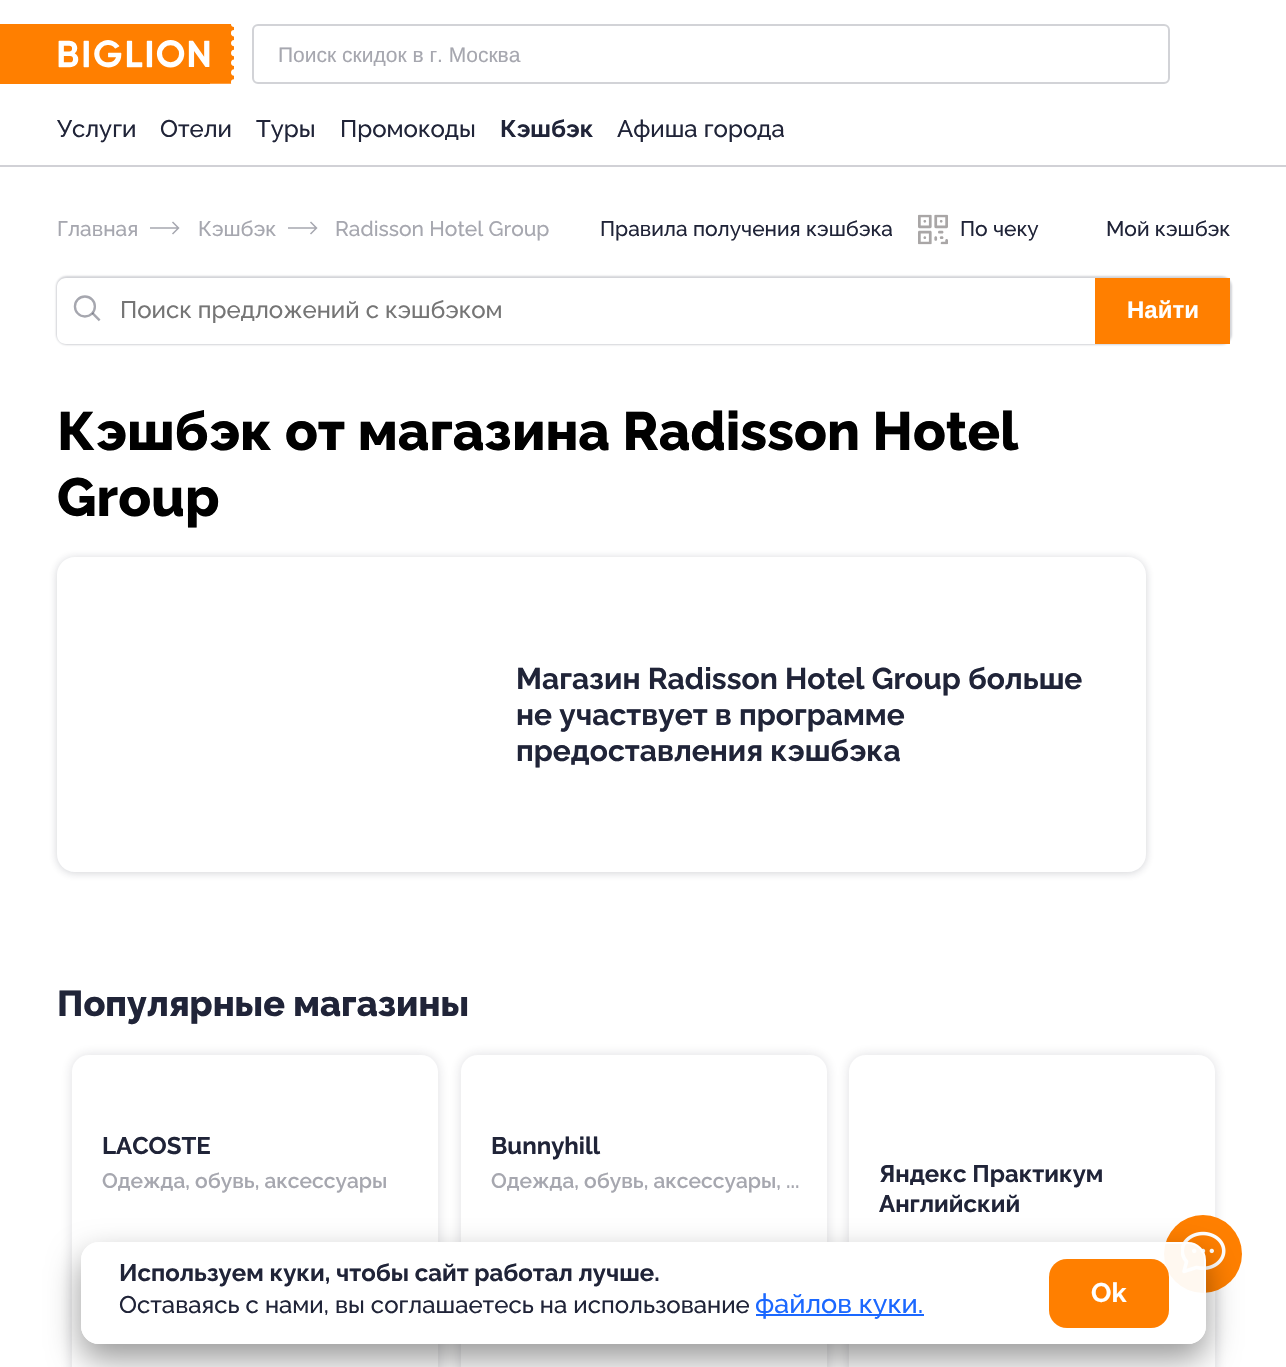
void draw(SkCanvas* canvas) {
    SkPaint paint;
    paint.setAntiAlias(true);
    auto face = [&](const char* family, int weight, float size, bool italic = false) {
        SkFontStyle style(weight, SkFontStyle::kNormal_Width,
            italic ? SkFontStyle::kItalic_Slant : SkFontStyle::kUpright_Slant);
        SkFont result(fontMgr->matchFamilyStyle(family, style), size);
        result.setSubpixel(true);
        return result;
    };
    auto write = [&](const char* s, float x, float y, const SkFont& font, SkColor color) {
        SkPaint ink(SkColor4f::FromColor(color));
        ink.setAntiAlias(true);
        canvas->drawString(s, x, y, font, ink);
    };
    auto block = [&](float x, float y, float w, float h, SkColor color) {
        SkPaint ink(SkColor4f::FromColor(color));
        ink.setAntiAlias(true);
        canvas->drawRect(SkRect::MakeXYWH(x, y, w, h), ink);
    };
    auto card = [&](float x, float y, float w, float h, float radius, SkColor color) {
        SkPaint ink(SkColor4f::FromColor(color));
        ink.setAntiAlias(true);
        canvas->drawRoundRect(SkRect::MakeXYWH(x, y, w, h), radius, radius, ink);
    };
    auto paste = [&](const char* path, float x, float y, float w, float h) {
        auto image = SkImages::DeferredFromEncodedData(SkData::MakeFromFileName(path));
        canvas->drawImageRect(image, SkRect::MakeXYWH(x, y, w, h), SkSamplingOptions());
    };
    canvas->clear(SK_ColorWHITE);
    block(0, 24, 210, 60, SkColorSetRGB(255, 127, 0));
    paste("pic1.png", 58, 24, 176, 60);
    paint.setStyle(SkPaint::kStroke_Style);
    paint.setStrokeWidth(2);
    paint.setColor(SkColorSetRGB(210, 211, 215));
    canvas->drawRoundRect(SkRect::MakeXYWH(253, 25, 916, 58), 5, 5, paint);
    canvas->save();
    canvas->clipRect(SkRect::MakeXYWH(278, 42, 831, 24));
    auto kFont1 = face("Liberation Sans", 400, 21);
    write("Поиск скидок в г. Москва", 278, 62, kFont1, SkColorSetRGB(166, 167, 175));
    canvas->restore();
    block(0, 165, 1286, 2, SkColorSetRGB(209, 209, 214));
    auto kFont2 = face("Raleway", 500, 24);
    write("Услуги", 57, 137, kFont2, SkColorSetRGB(32, 36, 56));
    write("Отели", 160, 137, kFont2, SkColorSetRGB(32, 36, 56));
    write("Туры", 256, 137, kFont2, SkColorSetRGB(32, 36, 56));
    write("Промокоды", 340, 137, kFont2, SkColorSetRGB(32, 36, 56));
    auto kFont3 = face("Raleway", 700, 24);
    write("Кэшбэк", 500, 137, kFont3, SkColorSetRGB(32, 36, 56));
    write("Афиша города", 617, 137, kFont2, SkColorSetRGB(32, 36, 56));
    auto kFont4 = face("Raleway", 500, 21);
    write("Главная", 57, 236, kFont4, SkColorSetRGB(166, 167, 175));
    paste("pic2.png", 150, 221, 30, 14);
    write("Кэшбэк", 198, 236, kFont4, SkColorSetRGB(166, 167, 175));
    paste("pic2.png", 288, 221, 30, 14);
    write("Radisson Hotel Group", 335, 236, kFont4, SkColorSetRGB(166, 167, 175));
    write("Правила получения кэшбэка", 600, 236, kFont4, SkColorSetRGB(32, 36, 56));
    paste("pic3.png", 918, 214, 30, 31);
    write("По чеку", 960, 236, kFont4, SkColorSetRGB(32, 36, 56));
    write("Мой кэшбэк", 1106, 236, kFont4, SkColorSetRGB(32, 36, 56));
    canvas->save();
    canvas->clipPath(SkPathBuilder(SkPathFillType::kEvenOdd).moveTo(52, 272).lineTo(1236, 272).lineTo(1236, 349).lineTo(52, 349).close().moveTo(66, 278).lineTo(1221, 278).cubicTo(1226, 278, 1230, 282, 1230, 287).lineTo(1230, 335).cubicTo(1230, 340, 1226, 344, 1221, 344).lineTo(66, 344).cubicTo(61, 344, 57, 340, 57, 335).lineTo(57, 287).cubicTo(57, 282, 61, 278, 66, 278).close().detach(), true);
    paint.setStyle(SkPaint::kFill_Style);
    paint.setColor(SkColorSetARGB(51, 32, 36, 56));
    paint.setMaskFilter(SkMaskFilter::MakeBlur(kNormal_SkBlurStyle, 1));
    canvas->drawRoundRect(SkRect::MakeXYWH(56, 276, 1176, 69), 11, 11, paint);
    paint.setMaskFilter(nullptr);
    canvas->restore();
    paste("pic4.png", 73, 295, 28, 27);
    write("Поиск предложений с кэшбэком", 120, 318, kFont2, SkColorSetRGB(117, 117, 117));
    block(1095, 278, 135, 66, SkColorSetRGB(255, 127, 0));
    auto kFont5 = face("Liberation Sans", 700, 24);
    write("Найти", 1127, 318, kFont5, SK_ColorWHITE);
    auto kFont6 = face("Raleway", 800, 54);
    write("Кэшбэк от магазина Radisson Hotel", 57, 450, kFont6, SK_ColorBLACK);
    write("Group", 57, 516, kFont6, SK_ColorBLACK);
    canvas->save();
    canvas->clipPath(SkPathBuilder(SkPathFillType::kEvenOdd).moveTo(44, 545).lineTo(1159, 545).lineTo(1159, 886).lineTo(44, 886).close().moveTo(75, 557).lineTo(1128, 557).cubicTo(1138, 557, 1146, 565, 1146, 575).lineTo(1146, 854).cubicTo(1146, 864, 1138, 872, 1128, 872).lineTo(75, 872).cubicTo(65, 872, 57, 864, 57, 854).lineTo(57, 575).cubicTo(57, 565, 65, 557, 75, 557).close().detach(), true);
    paint.setMaskFilter(SkMaskFilter::MakeBlur(kNormal_SkBlurStyle, 4));
    canvas->drawRoundRect(SkRect::MakeXYWH(57, 558, 1089, 315), 18, 18, paint);
    paint.setMaskFilter(nullptr);
    canvas->restore();
    auto kFont7 = face("Raleway", 700, 30);
    write("Магазин Radisson Hotel Group больше", 516, 689, kFont7, SkColorSetRGB(32, 36, 56));
    write("не участвует в программе", 516, 725, kFont7, SkColorSetRGB(32, 36, 56));
    write("предоставления кэшбэка", 516, 761, kFont7, SkColorSetRGB(32, 36, 56));
    auto kFont8 = face("Raleway", 800, 36);
    write("Популярные магазины", 57, 1016, kFont8, SkColorSetRGB(32, 36, 56));
    canvas->save();
    canvas->clipPath(SkPathBuilder(SkPathFillType::kEvenOdd).moveTo(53, 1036).lineTo(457, 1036).lineTo(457, 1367).lineTo(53, 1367).close().moveTo(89, 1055).lineTo(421, 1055).cubicTo(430.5f, 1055, 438, 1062.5f, 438, 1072).lineTo(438, 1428).cubicTo(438, 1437.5f, 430.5f, 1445, 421, 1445).lineTo(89, 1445).cubicTo(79.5f, 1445, 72, 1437.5f, 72, 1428).lineTo(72, 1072).cubicTo(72, 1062.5f, 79.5f, 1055, 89, 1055).close().detach(), true);
    paint.setColor(SkColorSetARGB(38, 32, 36, 56));
    paint.setMaskFilter(SkMaskFilter::MakeBlur(kNormal_SkBlurStyle, 6));
    canvas->drawRoundRect(SkRect::MakeXYWH(72, 1055, 366, 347), 17, 17, paint);
    paint.setMaskFilter(nullptr);
    canvas->restore();
    write("LACOSTE", 102, 1154, kFont3, SkColorSetRGB(32, 36, 56));
    auto kFont9 = face("Raleway", 600, 21);
    write("Одежда, обувь, аксессуары", 102, 1188, kFont9, SkColorSetRGB(166, 167, 175));
    canvas->save();
    canvas->clipPath(SkPathBuilder(SkPathFillType::kEvenOdd).moveTo(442, 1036).lineTo(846, 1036).lineTo(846, 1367).lineTo(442, 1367).close().moveTo(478, 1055).lineTo(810, 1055).cubicTo(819.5f, 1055, 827, 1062.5f, 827, 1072).lineTo(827, 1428).cubicTo(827, 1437.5f, 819.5f, 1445, 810, 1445).lineTo(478, 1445).cubicTo(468.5f, 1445, 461, 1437.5f, 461, 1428).lineTo(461, 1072).cubicTo(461, 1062.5f, 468.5f, 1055, 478, 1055).close().detach(), true);
    paint.setMaskFilter(SkMaskFilter::MakeBlur(kNormal_SkBlurStyle, 6));
    canvas->drawRoundRect(SkRect::MakeXYWH(461, 1055, 366, 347), 17, 17, paint);
    paint.setMaskFilter(nullptr);
    canvas->restore();
    write("Bunnyhill", 491, 1154, kFont3, SkColorSetRGB(32, 36, 56));
    write("Одежда, обувь, аксессуары, ...", 491, 1188, kFont9, SkColorSetRGB(166, 167, 175));
    canvas->save();
    canvas->clipPath(SkPathBuilder(SkPathFillType::kEvenOdd).moveTo(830, 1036).lineTo(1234, 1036).lineTo(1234, 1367).lineTo(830, 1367).close().moveTo(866, 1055).lineTo(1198, 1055).cubicTo(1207.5f, 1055, 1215, 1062.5f, 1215, 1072).lineTo(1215, 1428).cubicTo(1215, 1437.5f, 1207.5f, 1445, 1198, 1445).lineTo(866, 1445).cubicTo(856.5f, 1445, 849, 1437.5f, 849, 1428).lineTo(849, 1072).cubicTo(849, 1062.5f, 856.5f, 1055, 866, 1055).close().detach(), true);
    paint.setMaskFilter(SkMaskFilter::MakeBlur(kNormal_SkBlurStyle, 6));
    canvas->drawRoundRect(SkRect::MakeXYWH(849, 1055, 366, 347), 17, 17, paint);
    paint.setMaskFilter(nullptr);
    canvas->restore();
    write("Яндекс Практикум", 879, 1182, kFont3, SkColorSetRGB(32, 36, 56));
    write("Английский", 879, 1212, kFont3, SkColorSetRGB(32, 36, 56));
    paint.setColor(SkColorSetRGB(255, 127, 0));
    canvas->drawCircle(1203, 1254, 39, paint);
    paste("pic5.png", 1181, 1231, 45, 43);
    canvas->save();
    canvas->clipPath(SkPathBuilder(SkPathFillType::kEvenOdd).moveTo(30, 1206).lineTo(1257, 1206).lineTo(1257, 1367).lineTo(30, 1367).close().moveTo(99, 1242).lineTo(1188, 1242).cubicTo(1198, 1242, 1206, 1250, 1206, 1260).lineTo(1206, 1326).cubicTo(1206, 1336, 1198, 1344, 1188, 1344).lineTo(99, 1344).cubicTo(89, 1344, 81, 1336, 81, 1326).lineTo(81, 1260).cubicTo(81, 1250, 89, 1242, 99, 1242).close().detach(), true);
    paint.setColor(SkColorSetARGB(102, 0, 0, 0));
    paint.setMaskFilter(SkMaskFilter::MakeBlur(kNormal_SkBlurStyle, 16.5f));
    canvas->drawRoundRect(SkRect::MakeXYWH(81, 1257, 1125, 102), 18, 18, paint);
    paint.setMaskFilter(nullptr);
    canvas->restore();
    paint.setColor(SkColorSetARGB(240, 255, 255, 255));
    canvas->drawRoundRect(SkRect::MakeXYWH(82, 1243, 1123, 100), 17, 17, paint);
    paint.setStyle(SkPaint::kStroke_Style);
    paint.setColor(SK_ColorWHITE);
    canvas->drawRoundRect(SkRect::MakeXYWH(82, 1243, 1123, 100), 17, 17, paint);
    write("Используем куки, чтобы сайт работал лучше.", 119, 1281, kFont3, SkColorSetRGB(32, 36, 56));
    write("Оставаясь с нами, вы соглашаетесь на использование", 119, 1313, kFont2, SkColorSetRGB(32, 36, 56));
    block(756, 1314, 168, 2, SkColorSetRGB(27, 104, 255));
    auto kFont10 = face("Raleway", 500, 27);
    write("файлов куки.", 755, 1313, kFont10, SkColorSetRGB(27, 104, 255));
    card(1049, 1259, 120, 69, 18, SkColorSetRGB(255, 127, 0));
    auto kFont11 = face("Raleway", 700, 27);
    write("Оk", 1091, 1302, kFont11, SK_ColorWHITE);
}
